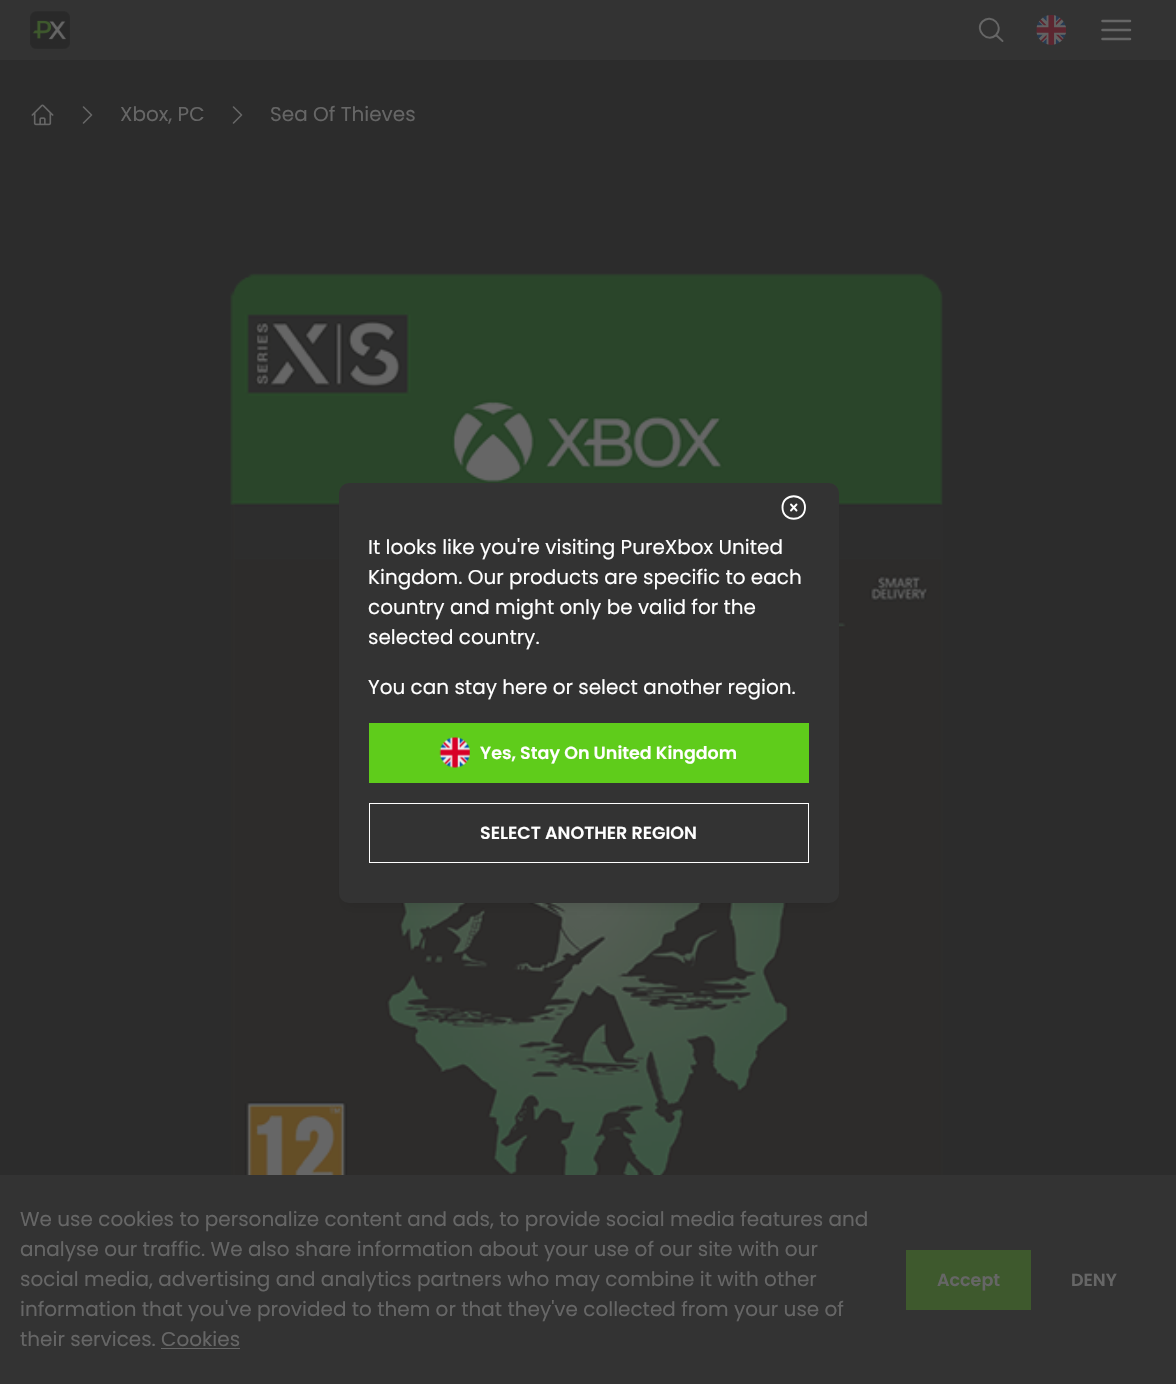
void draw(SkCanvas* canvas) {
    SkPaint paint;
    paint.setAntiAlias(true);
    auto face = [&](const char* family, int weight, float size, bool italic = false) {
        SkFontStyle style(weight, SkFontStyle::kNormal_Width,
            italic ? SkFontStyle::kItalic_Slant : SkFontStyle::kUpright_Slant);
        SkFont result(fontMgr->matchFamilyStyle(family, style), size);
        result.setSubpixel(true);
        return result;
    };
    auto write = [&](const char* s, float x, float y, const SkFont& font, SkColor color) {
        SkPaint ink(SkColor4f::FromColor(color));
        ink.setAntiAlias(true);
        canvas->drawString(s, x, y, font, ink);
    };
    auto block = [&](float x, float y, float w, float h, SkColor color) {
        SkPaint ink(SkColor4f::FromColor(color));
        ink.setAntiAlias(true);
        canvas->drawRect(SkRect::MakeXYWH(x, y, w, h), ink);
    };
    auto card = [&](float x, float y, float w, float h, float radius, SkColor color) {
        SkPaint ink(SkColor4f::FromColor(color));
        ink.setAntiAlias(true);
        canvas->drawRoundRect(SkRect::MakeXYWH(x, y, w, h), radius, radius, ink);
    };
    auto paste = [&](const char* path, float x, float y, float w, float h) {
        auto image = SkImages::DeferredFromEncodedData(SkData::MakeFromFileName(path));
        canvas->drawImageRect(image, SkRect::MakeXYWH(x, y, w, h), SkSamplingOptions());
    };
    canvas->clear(SkColorSetRGB(44, 44, 44));
    block(0, 0, 1176, 60, SkColorSetRGB(51, 51, 51));
    paste("pic1.png", 30, 11, 40, 38);
    paint.setStyle(SkPaint::kStroke_Style);
    paint.setStrokeWidth(1.9f);
    paint.setStrokeCap(SkPaint::kRound_Cap);
    paint.setStrokeJoin(SkPaint::kRound_Join);
    paint.setColor(SkColorSetRGB(102, 102, 102));
    canvas->drawPath(SkPathBuilder().moveTo(1002.5f, 41).lineTo(996, 35).moveTo(996, 35).cubicTo(1004.5f, 26, 991.5f, 13, 982.5f, 21.5f).cubicTo(974, 30, 987.5f, 43.5f, 996, 35).close().detach(), paint);
    paste("pic2.png", 1036, 15, 30, 30);
    paint.setStrokeWidth(2.5f);
    canvas->drawPath(SkPathBuilder().moveTo(1102.5f, 21).lineTo(1130, 21).moveTo(1102.5f, 30).lineTo(1130, 30).moveTo(1102.5f, 39).lineTo(1130, 39).detach(), paint);
    paste("pic3.png", 31, 104, 23, 22);
    paint.setStrokeWidth(1.6f);
    canvas->drawPath(SkPathBuilder().moveTo(83.5f, 107).lineTo(91.5f, 115).lineTo(83.5f, 123).detach(), paint);
    auto kFont1 = face("Poppins", 400, 20);
    write("Xbox, PC", 120, 121, kFont1, SkColorSetRGB(102, 102, 102));
    canvas->drawPath(SkPathBuilder().moveTo(233.5f, 107).lineTo(241.5f, 115).lineTo(233.5f, 123).detach(), paint);
    write("Sea Of Thieves", 270, 121, kFont1, SkColorSetRGB(102, 102, 102));
    paste("pic4.png", 230, 273, 713, 902);
    block(0, 1175, 1176, 209, SkColorSetRGB(51, 51, 51));
    write("We use cookies to personalize content and ads, to provide social media features and", 20, 1226, kFont1, SkColorSetRGB(102, 102, 102));
    write("analyse our traffic. We also share information about your use of our site with our", 20, 1256, kFont1, SkColorSetRGB(102, 102, 102));
    write("social media, advertising and analytics partners who may combine it with other", 20, 1286, kFont1, SkColorSetRGB(102, 102, 102));
    write("information that you've provided to them or that they've collected from your use of", 20, 1316, kFont1, SkColorSetRGB(102, 102, 102));
    write("their services.", 20, 1346, kFont1, SkColorSetRGB(102, 102, 102));
    write("Cookies", 161, 1346, kFont1, SkColorSetRGB(102, 102, 102));
    block(161, 1348, 79, 1, SkColorSetRGB(102, 102, 102));
    block(906, 1250, 125, 60, SkColorSetRGB(62, 89, 45));
    auto kFont2 = face("Poppins", 600, 17.5f);
    write("Accept", 937, 1286, kFont2, SkColorSetRGB(102, 102, 102));
    write("DENY", 1071, 1286, kFont2, SkColorSetRGB(102, 102, 102));
    paint.setStyle(SkPaint::kFill_Style);
    paint.setColor(SkColorSetARGB(26, 0, 0, 0));
    paint.setMaskFilter(SkMaskFilter::MakeBlur(kNormal_SkBlurStyle, 6));
    canvas->drawRoundRect(SkRect::MakeXYWH(346, 500, 485, 405), 2.5f, 2.5f, paint);
    paint.setMaskFilter(nullptr);
    card(339, 483, 500, 420, 10, SkColorSetRGB(51, 51, 51));
    paint.setStyle(SkPaint::kStroke_Style);
    paint.setStrokeWidth(1.9f);
    paint.setColor(SK_ColorWHITE);
    canvas->drawPath(SkPathBuilder().moveTo(791, 504.5f).lineTo(796.5f, 510.5f).moveTo(796.5f, 504.5f).lineTo(791, 510.5f).moveTo(805, 507.5f).cubicTo(805, 522.5f, 782.5f, 522.5f, 782.5f, 507.5f).cubicTo(782.5f, 492.5f, 805, 492.5f, 805, 507.5f).close().detach(), paint);
    write("It looks like you're visiting PureXbox United", 368, 554, kFont1, SK_ColorWHITE);
    write("Kingdom. Our products are specific to each", 368, 584, kFont1, SK_ColorWHITE);
    write("country and might only be valid for the", 368, 614, kFont1, SK_ColorWHITE);
    write("selected country.", 368, 644, kFont1, SK_ColorWHITE);
    write("You can stay here or select another region.", 368, 694, kFont1, SK_ColorWHITE);
    block(369, 723, 440, 60, SkColorSetRGB(95, 204, 27));
    paste("pic5.png", 439, 737, 31, 31);
    write("Yes, Stay On United Kingdom", 480, 759, kFont2, SK_ColorWHITE);
    paint.setStrokeWidth(1);
    paint.setStrokeCap(SkPaint::kButt_Cap);
    paint.setStrokeJoin(SkPaint::kMiter_Join);
    canvas->drawRect(SkRect::MakeXYWH(369.5f, 803.5f, 439, 59), paint);
    write("SELECT ANOTHER REGION", 480, 839, kFont2, SK_ColorWHITE);
}
